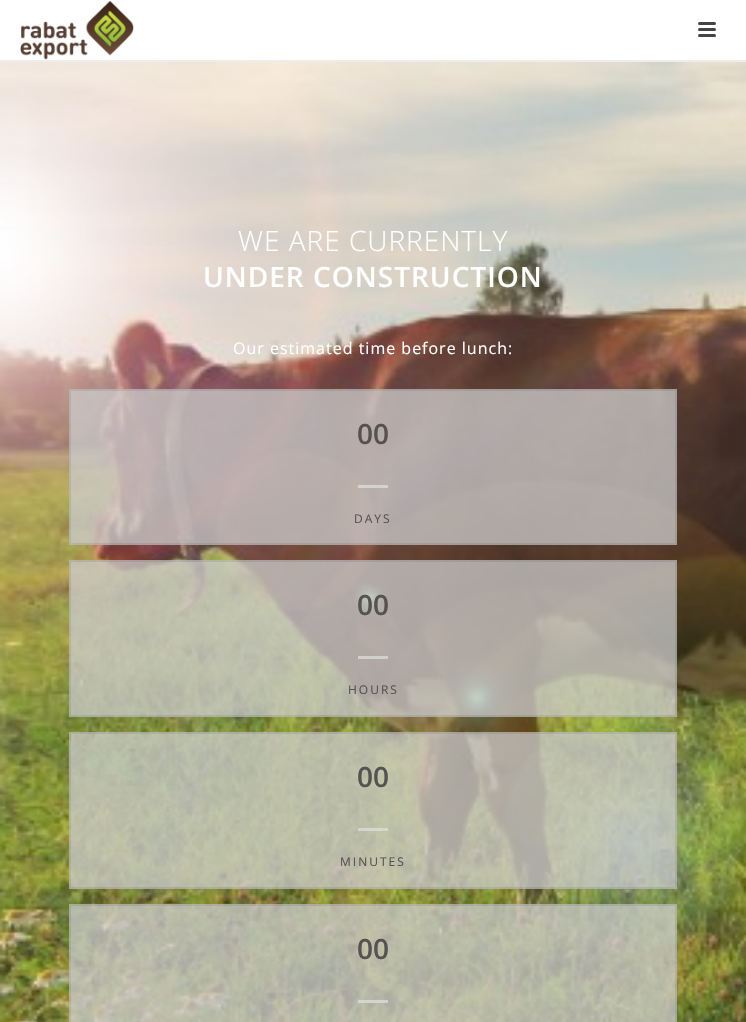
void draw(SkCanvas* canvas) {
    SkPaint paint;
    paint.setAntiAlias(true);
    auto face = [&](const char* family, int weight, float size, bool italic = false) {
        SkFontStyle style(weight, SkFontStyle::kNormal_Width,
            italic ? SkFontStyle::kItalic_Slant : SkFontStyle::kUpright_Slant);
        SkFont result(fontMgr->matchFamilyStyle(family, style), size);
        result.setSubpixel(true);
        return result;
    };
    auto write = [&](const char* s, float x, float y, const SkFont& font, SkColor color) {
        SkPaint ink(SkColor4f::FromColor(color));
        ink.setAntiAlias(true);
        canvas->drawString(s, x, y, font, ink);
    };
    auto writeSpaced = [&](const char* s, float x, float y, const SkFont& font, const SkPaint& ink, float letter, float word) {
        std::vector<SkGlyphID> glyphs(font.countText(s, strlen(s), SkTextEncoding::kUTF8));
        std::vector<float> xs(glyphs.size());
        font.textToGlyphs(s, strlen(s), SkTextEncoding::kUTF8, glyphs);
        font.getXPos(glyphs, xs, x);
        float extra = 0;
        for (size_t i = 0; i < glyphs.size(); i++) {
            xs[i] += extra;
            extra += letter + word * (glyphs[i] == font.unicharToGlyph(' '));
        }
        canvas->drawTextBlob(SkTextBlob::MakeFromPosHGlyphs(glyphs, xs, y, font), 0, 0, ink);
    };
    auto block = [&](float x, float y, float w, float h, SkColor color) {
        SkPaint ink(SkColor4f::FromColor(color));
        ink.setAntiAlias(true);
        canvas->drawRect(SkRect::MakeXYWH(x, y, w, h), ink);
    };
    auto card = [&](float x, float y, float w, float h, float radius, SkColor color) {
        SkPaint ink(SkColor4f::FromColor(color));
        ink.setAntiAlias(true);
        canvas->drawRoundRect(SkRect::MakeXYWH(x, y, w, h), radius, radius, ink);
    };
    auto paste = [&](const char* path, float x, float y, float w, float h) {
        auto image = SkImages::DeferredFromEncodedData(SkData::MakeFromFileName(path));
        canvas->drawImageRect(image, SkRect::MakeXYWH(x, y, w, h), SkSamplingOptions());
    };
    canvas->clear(SK_ColorWHITE);
    block(0, 60, 746, 2, SkColorSetRGB(237, 237, 237));
    paste("pic1.png", 20, 1, 114, 59);
    card(698, 22, 18, 3, 1.5f, SkColorSetRGB(68, 68, 68));
    card(698, 28, 18, 3, 1.5f, SkColorSetRGB(68, 68, 68));
    card(698, 34, 18, 3, 1.5f, SkColorSetRGB(68, 68, 68));
    paste("pic2.png", 0, 62, 746, 960);
    auto kFont1 = face("Open Sans", 300, 28);
    paint.setColor(SK_ColorWHITE);
    writeSpaced("WE ARE CURRENTLY", 238, 251, kFont1, paint, 1, 0);
    auto kFont2 = face("Open Sans", 600, 28);
    writeSpaced("UNDER CONSTRUCTION", 203, 287, kFont2, paint, 1, 0);
    auto kFont3 = face("Open Sans", 400, 16);
    writeSpaced("Our estimated time before lunch:", 233, 354, kFont3, paint, 1, 0);
    block(69, 389, 608, 156, SkColorSetARGB(191, 204, 204, 204));
    paint.setStyle(SkPaint::kStroke_Style);
    paint.setStrokeWidth(2);
    paint.setColor(SkColorSetARGB(20, 0, 0, 0));
    canvas->drawRect(SkRect::MakeXYWH(70, 390, 606, 154), paint);
    write("00", 357, 444, kFont2, SkColorSetRGB(85, 82, 81));
    block(358, 485, 30, 3, SkColorSetARGB(191, 221, 221, 221));
    auto kFont4 = face("Open Sans", 400, 12);
    paint.setStyle(SkPaint::kFill_Style);
    paint.setColor(SkColorSetRGB(85, 82, 81));
    writeSpaced("DAYS", 354, 523, kFont4, paint, 2, 0);
    block(69, 560, 608, 157, SkColorSetARGB(191, 204, 204, 204));
    paint.setStyle(SkPaint::kStroke_Style);
    paint.setColor(SkColorSetARGB(20, 0, 0, 0));
    canvas->drawRect(SkRect::MakeXYWH(70, 561, 606, 155), paint);
    write("00", 357, 615, kFont2, SkColorSetRGB(85, 82, 81));
    block(358, 656, 30, 3, SkColorSetRGB(210, 208, 207));
    paint.setStyle(SkPaint::kFill_Style);
    paint.setColor(SkColorSetRGB(85, 82, 81));
    writeSpaced("HOURS", 348, 694, kFont4, paint, 2, 0);
    block(69, 732, 608, 157, SkColorSetARGB(191, 204, 204, 204));
    paint.setStyle(SkPaint::kStroke_Style);
    paint.setColor(SkColorSetARGB(20, 0, 0, 0));
    canvas->drawRect(SkRect::MakeXYWH(70, 733, 606, 155), paint);
    write("00", 357, 787, kFont2, SkColorSetRGB(85, 82, 81));
    block(358, 828, 30, 3, SkColorSetARGB(191, 221, 221, 221));
    paint.setStyle(SkPaint::kFill_Style);
    paint.setColor(SkColorSetRGB(85, 82, 81));
    writeSpaced("MINUTES", 340, 866, kFont4, paint, 2, 0);
    block(69, 904, 608, 118, SkColorSetARGB(191, 204, 204, 204));
    paint.setStyle(SkPaint::kStroke_Style);
    paint.setColor(SkColorSetARGB(20, 0, 0, 0));
    canvas->drawRect(SkRect::MakeXYWH(70, 905, 606, 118), paint);
    write("00", 357, 959, kFont2, SkColorSetRGB(85, 82, 81));
    block(358, 1000, 30, 3, SkColorSetARGB(191, 221, 221, 221));
}
